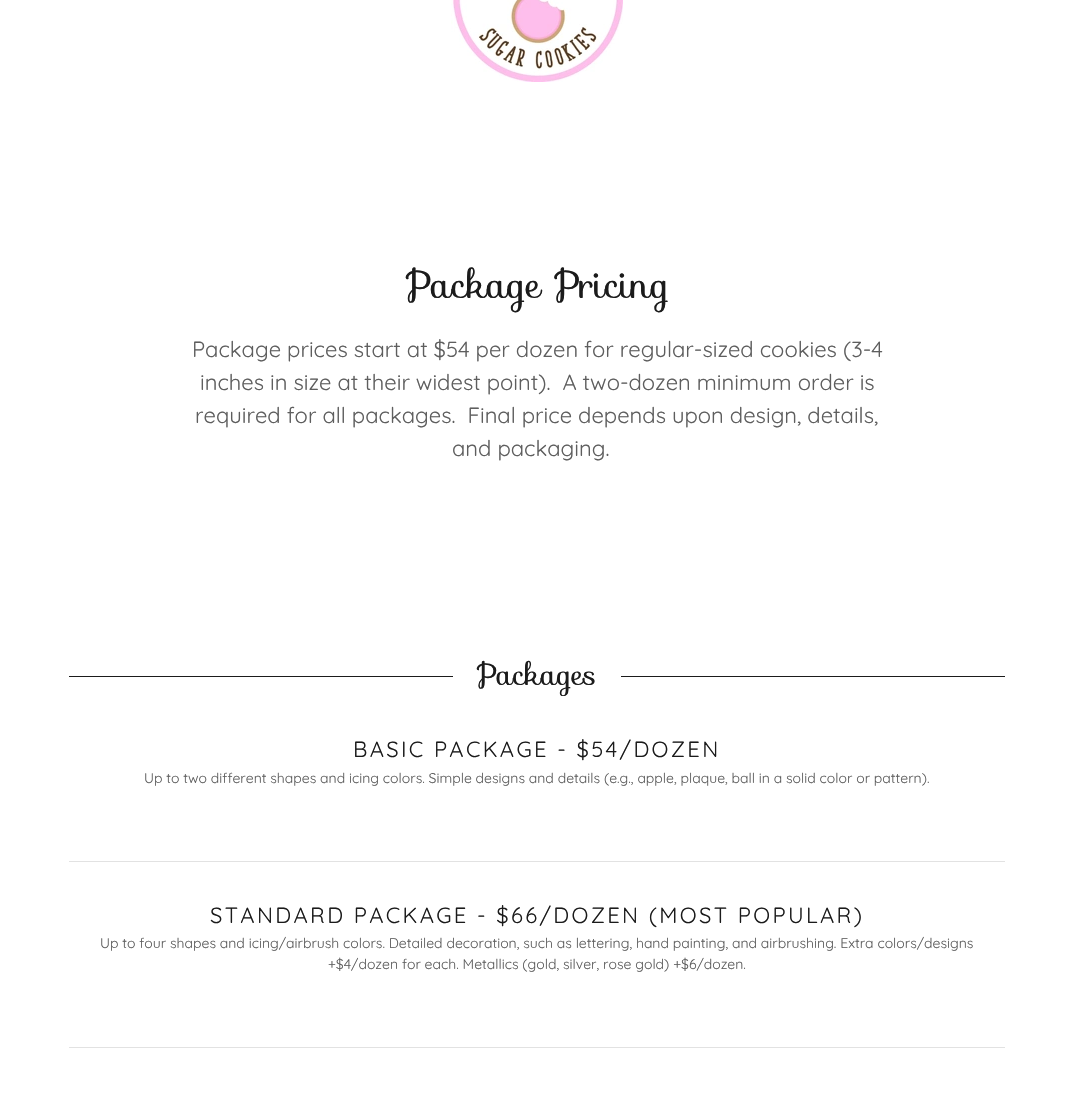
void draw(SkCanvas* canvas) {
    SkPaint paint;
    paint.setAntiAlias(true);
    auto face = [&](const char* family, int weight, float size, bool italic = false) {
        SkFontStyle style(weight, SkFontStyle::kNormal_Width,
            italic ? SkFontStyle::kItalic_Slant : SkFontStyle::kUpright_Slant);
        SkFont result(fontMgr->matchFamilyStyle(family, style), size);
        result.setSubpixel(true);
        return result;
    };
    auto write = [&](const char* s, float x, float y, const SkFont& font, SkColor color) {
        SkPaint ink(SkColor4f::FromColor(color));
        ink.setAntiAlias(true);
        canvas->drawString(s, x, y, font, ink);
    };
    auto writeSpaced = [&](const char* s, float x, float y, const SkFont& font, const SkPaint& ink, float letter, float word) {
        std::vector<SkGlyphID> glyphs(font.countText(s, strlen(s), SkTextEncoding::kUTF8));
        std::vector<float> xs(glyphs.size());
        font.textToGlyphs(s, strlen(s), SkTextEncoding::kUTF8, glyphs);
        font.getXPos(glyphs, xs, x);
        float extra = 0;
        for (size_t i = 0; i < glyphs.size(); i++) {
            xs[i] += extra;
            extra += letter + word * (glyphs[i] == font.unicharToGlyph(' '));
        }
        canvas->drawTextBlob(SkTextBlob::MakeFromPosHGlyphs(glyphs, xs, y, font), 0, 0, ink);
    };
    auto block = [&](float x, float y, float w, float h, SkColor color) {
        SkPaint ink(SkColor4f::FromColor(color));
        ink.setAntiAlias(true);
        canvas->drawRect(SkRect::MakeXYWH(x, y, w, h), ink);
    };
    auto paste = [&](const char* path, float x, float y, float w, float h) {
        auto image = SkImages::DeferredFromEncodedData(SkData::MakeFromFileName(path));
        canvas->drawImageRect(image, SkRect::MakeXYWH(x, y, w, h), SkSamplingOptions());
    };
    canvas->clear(SK_ColorWHITE);
    paste("pic1.png", 451, 0, 172, 82);
    auto kFont1 = face("Sofia", 400, 38);
    write("Package Pricing", 406, 298, kFont1, SkColorSetRGB(27, 27, 27));
    auto kFont2 = face("Quicksand", 400, 22);
    write("Package prices start at $54 per dozen for regular-sized cookies (3-4", 192, 357, kFont2, SkColorSetRGB(94, 94, 94));
    write("inches in size at their widest point).  A two-dozen minimum order is", 200, 390, kFont2, SkColorSetRGB(94, 94, 94));
    write("required for all packages.  Final price depends upon design, details,", 195, 423, kFont2, SkColorSetRGB(94, 94, 94));
    write("and packaging.", 452, 456, kFont2, SkColorSetRGB(94, 94, 94));
    block(69, 676, 384, 1, SkColorSetRGB(27, 27, 27));
    canvas->save();
    canvas->clipRect(SkRect::MakeXYWH(69, 654, 936, 42));
    auto kFont3 = face("Sofia", 400, 30);
    write("Packages", 477, 685, kFont3, SkColorSetRGB(27, 27, 27));
    canvas->restore();
    block(621, 676, 384, 1, SkColorSetRGB(27, 27, 27));
    paint.setColor(SkColorSetRGB(27, 27, 27));
    writeSpaced("BASIC PACKAGE - $54/DOZEN", 353, 757, kFont2, paint, 2.35f, 0);
    auto kFont4 = face("Quicksand", 400, 14);
    write("Up to two different shapes and icing colors. Simple designs and details (e.g., apple, plaque, ball in a solid color or pattern).", 144, 783, kFont4, SkColorSetRGB(94, 94, 94));
    block(69, 861, 936, 1, SkColorSetRGB(226, 226, 226));
    writeSpaced("STANDARD PACKAGE - $66/DOZEN (MOST POPULAR)", 210, 923, kFont2, paint, 2.35f, 0);
    write("Up to four shapes and icing/airbrush colors. Detailed decoration, such as lettering, hand painting, and airbrushing. Extra colors/designs", 100, 948, kFont4, SkColorSetRGB(94, 94, 94));
    write("+$4/dozen for each. Metallics (gold, silver, rose gold) +$6/dozen.", 328, 969, kFont4, SkColorSetRGB(94, 94, 94));
    block(69, 1047, 936, 1, SkColorSetRGB(226, 226, 226));
}
